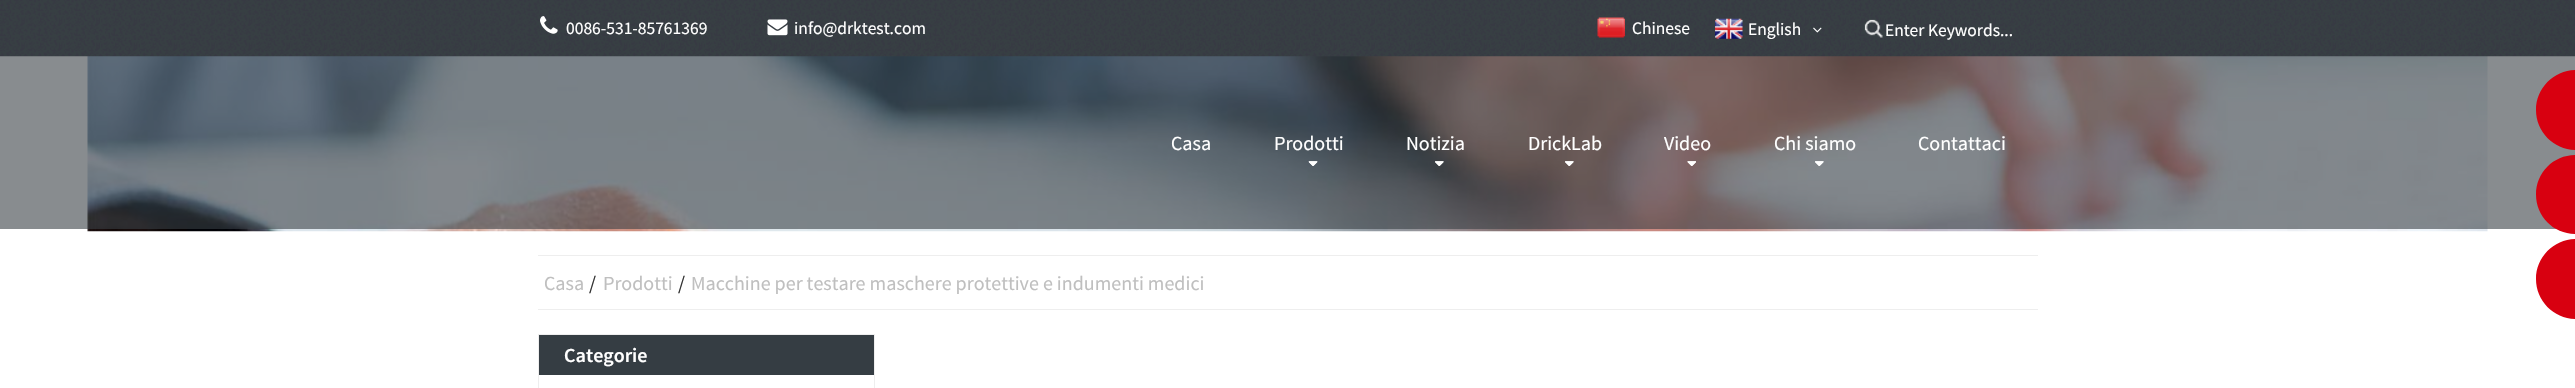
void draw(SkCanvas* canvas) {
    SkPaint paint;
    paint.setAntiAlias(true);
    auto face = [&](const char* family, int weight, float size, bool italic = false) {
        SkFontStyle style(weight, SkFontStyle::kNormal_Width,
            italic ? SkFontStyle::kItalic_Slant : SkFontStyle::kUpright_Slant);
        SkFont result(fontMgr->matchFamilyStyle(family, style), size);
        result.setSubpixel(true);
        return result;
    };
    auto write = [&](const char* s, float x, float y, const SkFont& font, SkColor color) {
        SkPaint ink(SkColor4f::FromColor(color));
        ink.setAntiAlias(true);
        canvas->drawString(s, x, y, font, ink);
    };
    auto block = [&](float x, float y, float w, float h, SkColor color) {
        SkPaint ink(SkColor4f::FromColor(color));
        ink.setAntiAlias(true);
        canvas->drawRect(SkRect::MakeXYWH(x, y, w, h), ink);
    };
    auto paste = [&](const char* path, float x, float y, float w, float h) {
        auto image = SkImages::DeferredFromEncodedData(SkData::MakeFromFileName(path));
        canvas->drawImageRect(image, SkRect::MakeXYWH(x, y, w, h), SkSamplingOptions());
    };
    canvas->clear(SK_ColorWHITE);
    paste("pic1.png", 87, 56, 2401, 176);
    block(0, 56, 2575, 173, SkColorSetARGB(153, 57, 63, 69));
    paste("pic2.png", 0, 0, 2575, 57);
    paste("pic3.png", 540, 16, 18, 18);
    auto kFont1 = face("Source Sans Pro", 400, 17.5f);
    write("0086-531-85761369", 566, 34, kFont1, SK_ColorWHITE);
    paste("pic4.png", 767, 19, 21, 17);
    write("info@drktest.com", 794, 34, kFont1, SK_ColorWHITE);
    paste("pic5.png", 1597, 17, 28, 21);
    write("Chinese", 1632, 34, kFont1, SK_ColorWHITE);
    paste("pic6.png", 1715, 18, 28, 21);
    write("English", 1748, 35, kFont1, SK_ColorWHITE);
    paste("pic7.png", 1813, 27, 9, 6);
    paste("pic8.png", 1864, 19, 19, 19);
    write("Enter Keywords...", 1885, 36, kFont1, SK_ColorWHITE);
    auto kFont2 = face("Source Sans Pro", 400, 20);
    write("Casa", 1171, 150, kFont2, SK_ColorWHITE);
    write("Prodotti", 1274, 150, kFont2, SK_ColorWHITE);
    paste("pic9.png", 1308, 161, 10, 5);
    paste("pic10.png", 1308, 161, 10, 5);
    write("Notizia", 1406, 150, kFont2, SK_ColorWHITE);
    paste("pic11.png", 1435, 161, 9, 5);
    paste("pic12.png", 1435, 161, 9, 5);
    write("DrickLab", 1528, 150, kFont2, SK_ColorWHITE);
    paste("pic13.png", 1565, 161, 9, 5);
    paste("pic14.png", 1565, 161, 9, 5);
    write("Video", 1664, 150, kFont2, SK_ColorWHITE);
    paste("pic15.png", 1687, 161, 9, 5);
    paste("pic16.png", 1687, 161, 9, 5);
    write("Chi siamo", 1774, 150, kFont2, SK_ColorWHITE);
    paste("pic17.png", 1815, 161, 9, 5);
    paste("pic18.png", 1815, 161, 9, 5);
    write("Contattaci", 1918, 150, kFont2, SK_ColorWHITE);
    block(538, 255, 1500, 1, SkColorSetRGB(238, 238, 238));
    block(538, 309, 1500, 1, SkColorSetRGB(238, 238, 238));
    write("Casa", 544, 290, kFont2, SkColorSetRGB(191, 191, 191));
    write("/", 589, 290, kFont2, SkColorSetRGB(51, 51, 51));
    write("Prodotti", 603, 290, kFont2, SkColorSetRGB(191, 191, 191));
    write("/", 678, 290, kFont2, SkColorSetRGB(51, 51, 51));
    write("Macchine per testare maschere protettive e indumenti medici", 691, 290, kFont2, SkColorSetRGB(191, 191, 191));
    paint.setStyle(SkPaint::kStroke_Style);
    paint.setStrokeWidth(1);
    paint.setColor(SkColorSetRGB(238, 238, 238));
    canvas->drawRect(SkRect::MakeXYWH(538.5f, 334.5f, 336, 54), paint);
    block(539, 335, 335, 40, SkColorSetRGB(53, 61, 67));
    auto kFont3 = face("Source Sans Pro", 600, 20);
    write("Categorie", 564, 362, kFont3, SK_ColorWHITE);
    paint.setStyle(SkPaint::kFill_Style);
    paint.setColor(SkColorSetRGB(216, 0, 16));
    canvas->drawPath(SkPathBuilder().moveTo(2576, 70).lineTo(2575, 70).lineTo(2575, 150).lineTo(2576, 150).cubicTo(2554, 150, 2536, 132, 2536, 110).cubicTo(2536, 88, 2554, 70, 2576, 70).close().detach(), paint);
    canvas->drawPath(SkPathBuilder().moveTo(2575.5f, 155).lineTo(2575, 155).lineTo(2575, 234).lineTo(2575.5f, 234).cubicTo(2553.5f, 234, 2536, 216.5f, 2536, 194.5f).cubicTo(2536, 172.5f, 2553.5f, 155, 2575.5f, 155).close().detach(), paint);
    canvas->drawPath(SkPathBuilder().moveTo(2576, 239).lineTo(2575, 239).lineTo(2575, 319).lineTo(2576, 319).cubicTo(2554, 319, 2536, 301, 2536, 279).cubicTo(2536, 257, 2554, 239, 2576, 239).close().detach(), paint);
}
